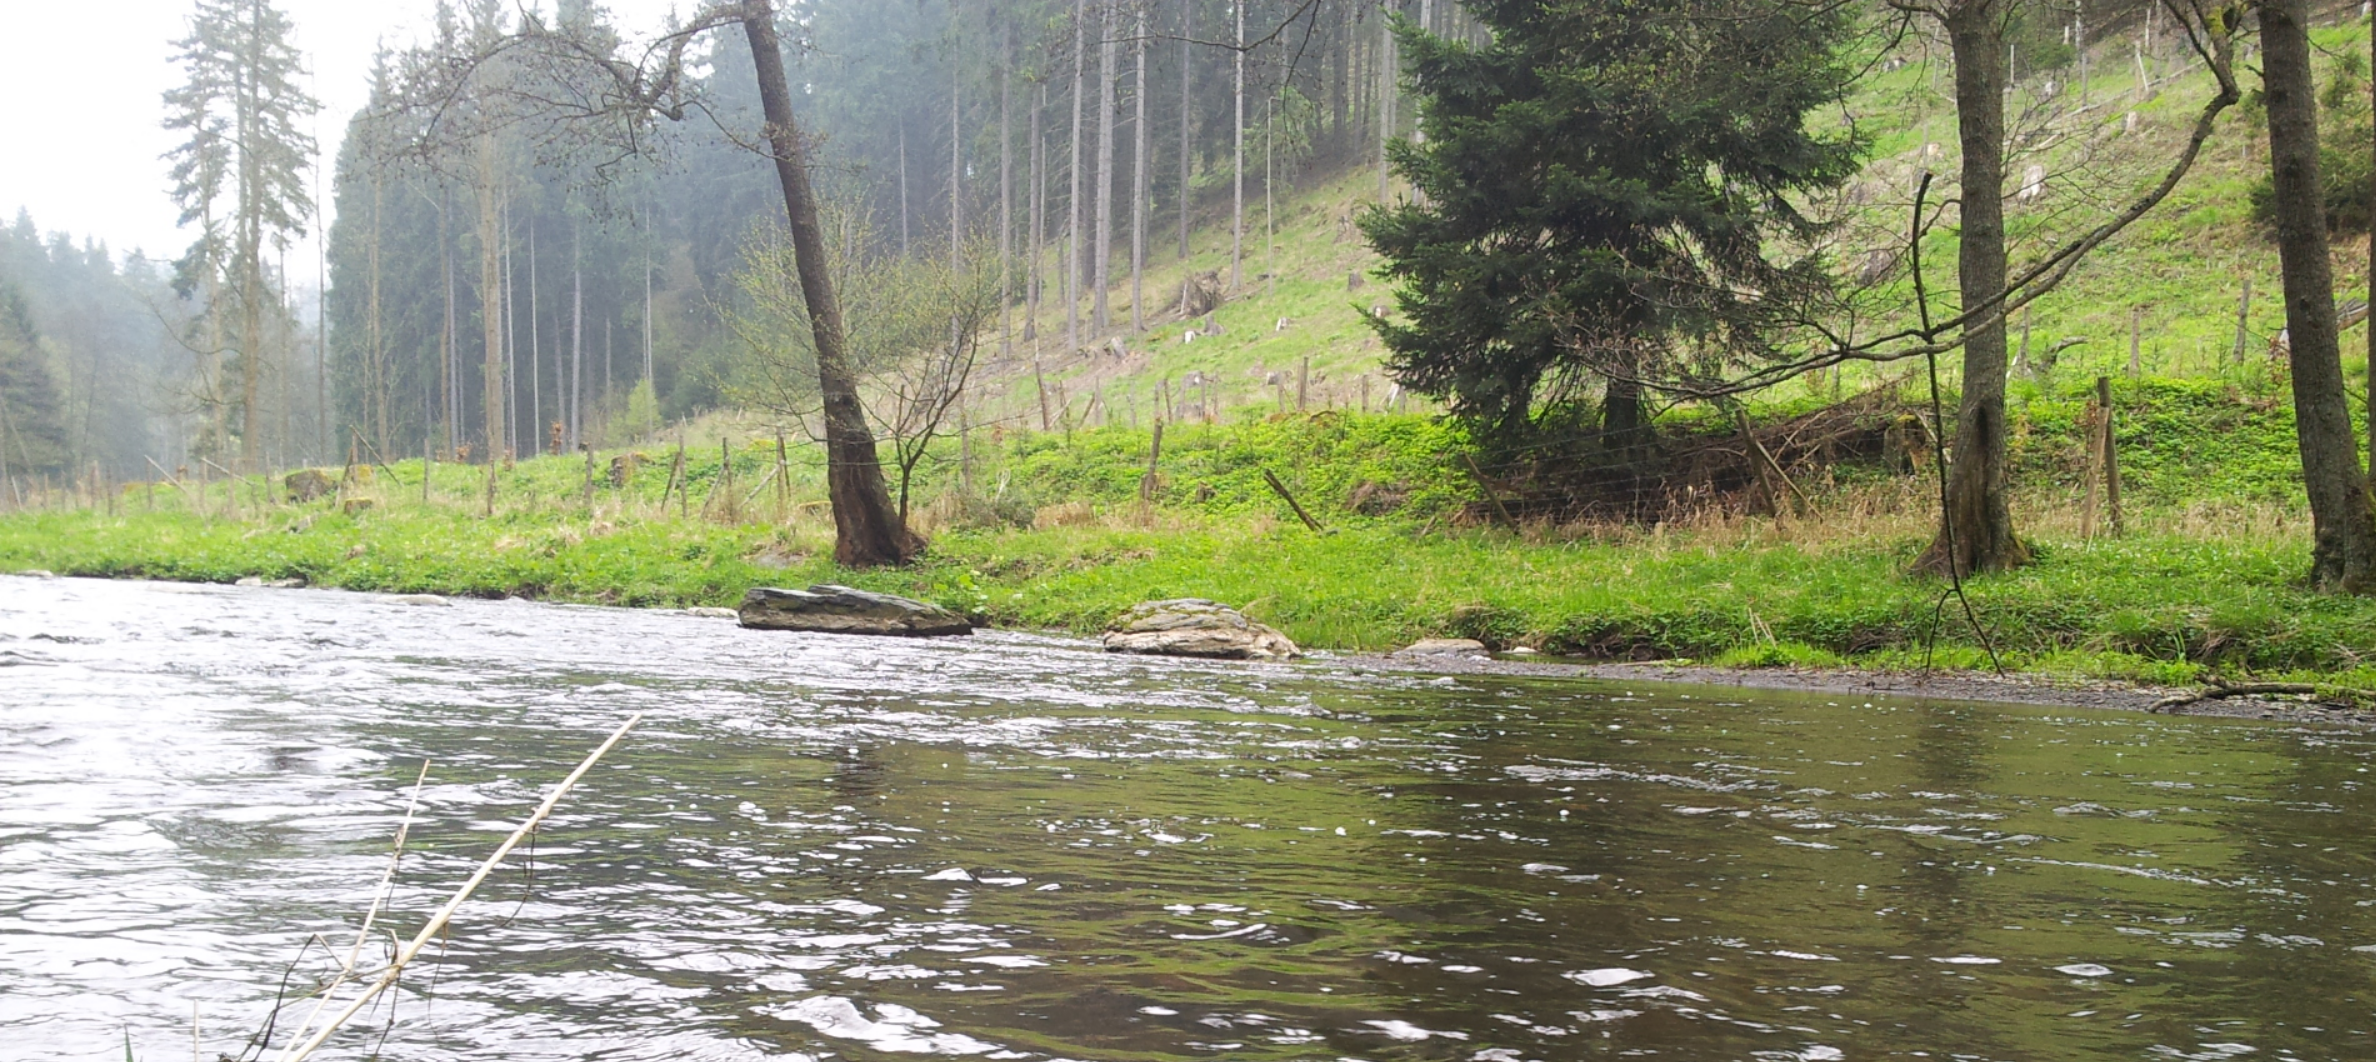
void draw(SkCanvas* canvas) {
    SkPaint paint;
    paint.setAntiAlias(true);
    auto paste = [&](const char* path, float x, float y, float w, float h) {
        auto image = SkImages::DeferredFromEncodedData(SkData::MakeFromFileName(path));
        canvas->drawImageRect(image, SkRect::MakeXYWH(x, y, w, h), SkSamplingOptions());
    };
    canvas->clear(SK_ColorWHITE);
    paste("pic1.png", 0, 0, 2376, 1062);
}
